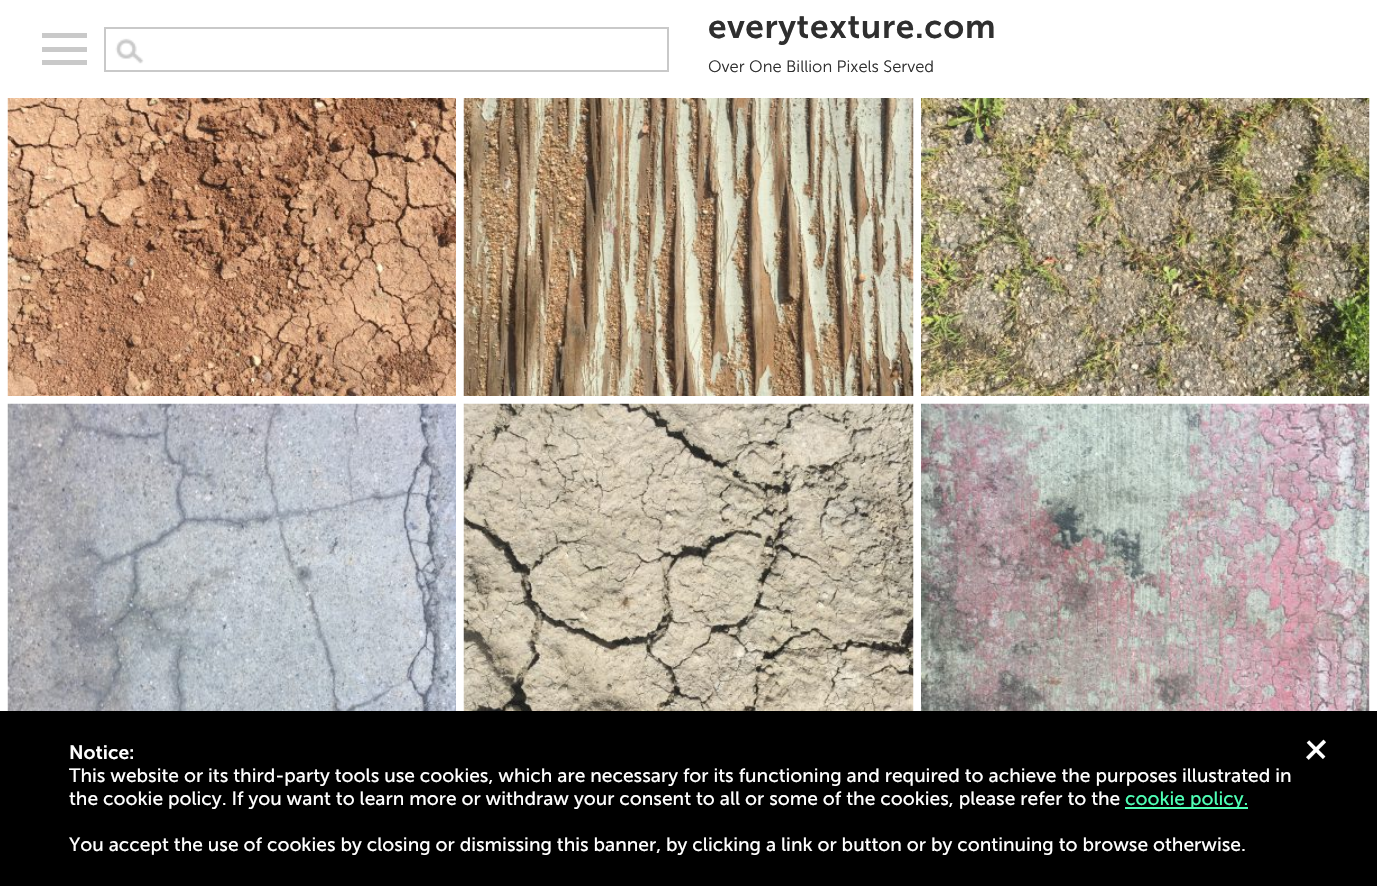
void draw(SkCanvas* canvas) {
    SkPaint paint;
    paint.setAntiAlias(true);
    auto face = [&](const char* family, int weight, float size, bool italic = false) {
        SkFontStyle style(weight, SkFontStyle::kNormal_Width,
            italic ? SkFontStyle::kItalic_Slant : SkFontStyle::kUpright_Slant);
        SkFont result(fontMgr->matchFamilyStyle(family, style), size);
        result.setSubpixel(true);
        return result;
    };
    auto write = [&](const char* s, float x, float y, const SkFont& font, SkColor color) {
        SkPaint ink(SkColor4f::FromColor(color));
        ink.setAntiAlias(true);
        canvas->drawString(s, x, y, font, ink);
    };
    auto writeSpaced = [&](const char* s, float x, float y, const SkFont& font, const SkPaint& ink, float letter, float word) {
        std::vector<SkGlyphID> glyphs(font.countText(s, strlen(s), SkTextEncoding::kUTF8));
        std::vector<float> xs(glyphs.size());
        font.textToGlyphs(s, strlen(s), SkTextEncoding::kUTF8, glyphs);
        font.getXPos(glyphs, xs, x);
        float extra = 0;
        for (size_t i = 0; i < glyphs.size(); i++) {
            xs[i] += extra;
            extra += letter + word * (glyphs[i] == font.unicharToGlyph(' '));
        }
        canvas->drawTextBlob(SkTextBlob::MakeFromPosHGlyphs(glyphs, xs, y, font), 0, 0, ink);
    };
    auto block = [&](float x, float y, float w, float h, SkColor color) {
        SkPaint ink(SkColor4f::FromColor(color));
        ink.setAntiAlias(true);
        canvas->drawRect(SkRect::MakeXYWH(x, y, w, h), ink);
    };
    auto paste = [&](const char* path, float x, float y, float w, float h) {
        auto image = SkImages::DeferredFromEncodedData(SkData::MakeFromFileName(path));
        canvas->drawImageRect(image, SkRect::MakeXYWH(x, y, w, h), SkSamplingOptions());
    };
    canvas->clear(SK_ColorWHITE);
    block(42, 33, 45, 5, SkColorSetRGB(201, 201, 201));
    block(42, 47, 45, 5, SkColorSetRGB(201, 201, 201));
    block(42, 60, 45, 5, SkColorSetRGB(201, 201, 201));
    paste("pic1.png", 115, 38, 29, 26);
    paint.setStyle(SkPaint::kStroke_Style);
    paint.setStrokeWidth(2);
    paint.setColor(SkColorSetRGB(201, 201, 201));
    canvas->drawRect(SkRect::MakeXYWH(105, 28, 563, 43), paint);
    auto kFont1 = face("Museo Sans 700", 600, 33.5f);
    paint.setStyle(SkPaint::kFill_Style);
    paint.setColor(SkColorSetRGB(47, 47, 47));
    writeSpaced("everytexture.com", 708, 38, kFont1, paint, 0.7f, 0);
    auto kFont2 = face("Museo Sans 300", 300, 16.5f);
    write("Over One Billion Pixels Served", 708, 72, kFont2, SkColorSetRGB(47, 47, 47));
    paste("pic2.png", 7, 98, 449, 298);
    paste("pic3.png", 463, 98, 451, 298);
    paste("pic4.png", 921, 98, 449, 298);
    paste("pic5.png", 7, 403, 449, 308);
    paste("pic6.png", 463, 403, 451, 308);
    paste("pic7.png", 921, 403, 449, 308);
    block(0, 711, 1377, 175, SK_ColorBLACK);
    auto kFont3 = face("Museo Sans 700", 600, 19.2f);
    write("Notice:", 69, 759, kFont3, SK_ColorWHITE);
    auto kFont4 = face("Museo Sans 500", 400, 19.2f);
    write("This website or its third-party tools use cookies, which are necessary for its functioning and required to achieve the purposes illustrated in", 69, 782, kFont4, SK_ColorWHITE);
    write("the cookie policy. If you want to learn more or withdraw your consent to all or some of the cookies, please refer to the", 69, 805, kFont4, SK_ColorWHITE);
    block(1125, 807, 123, 2, SkColorSetRGB(78, 255, 181));
    write("cookie policy.", 1125, 805, kFont4, SkColorSetRGB(78, 255, 181));
    write("You accept the use of cookies by closing or dismissing this banner, by clicking a link or button or by continuing to browse otherwise.", 69, 851, kFont4, SK_ColorWHITE);
    auto kFont5 = face("Museo Sans 500", 400, 43);
    canvas->save();
    canvas->rotate(45, 1297, 748);
    write("+", 1297, 748, kFont5, SK_ColorWHITE);
    canvas->restore();
}
